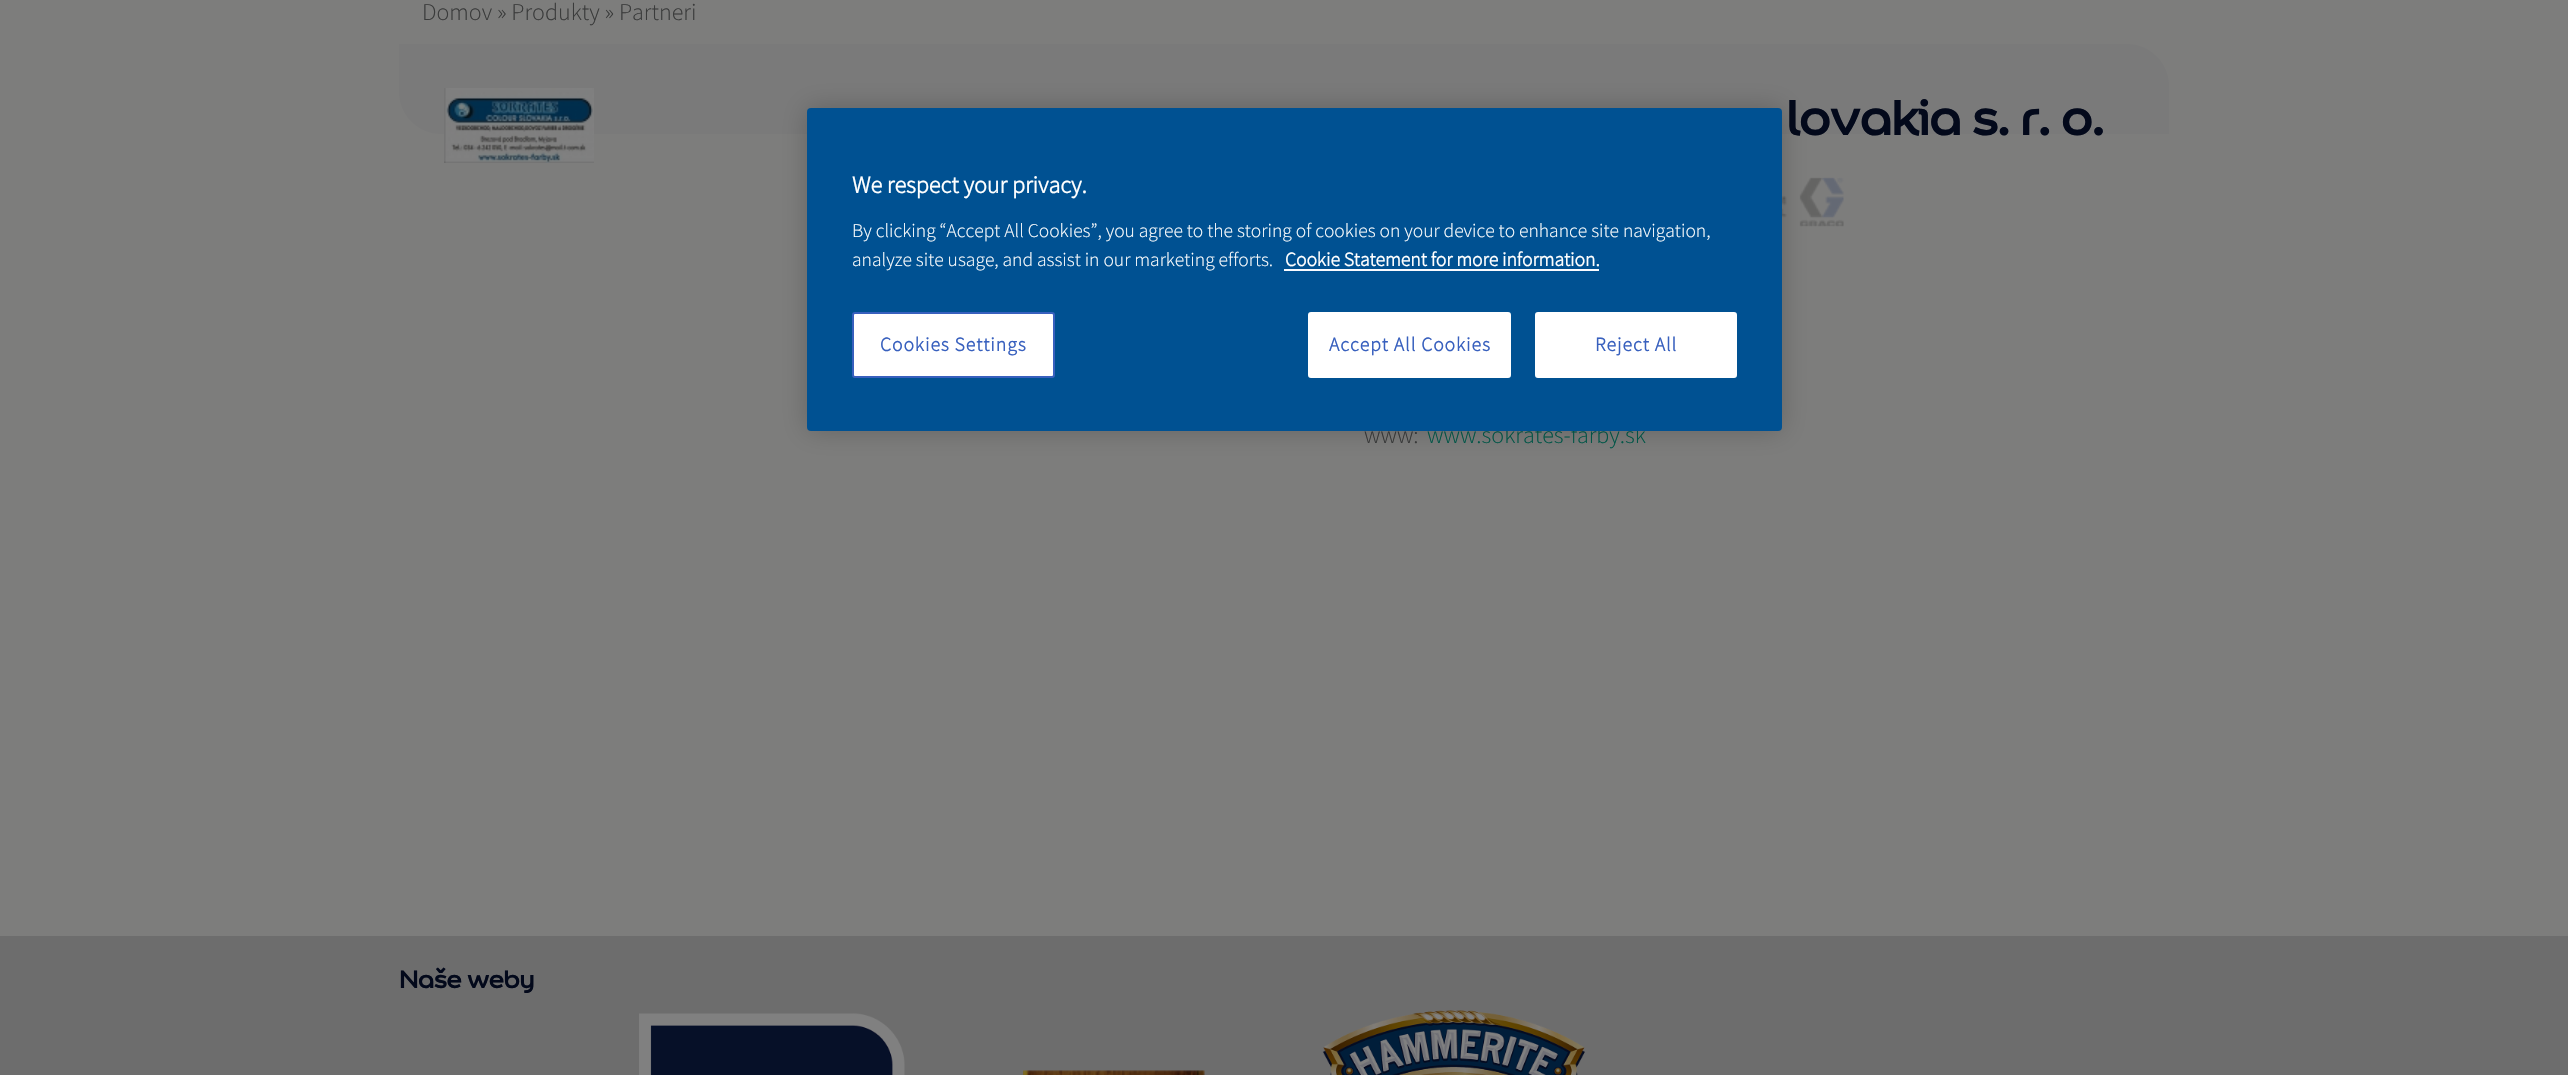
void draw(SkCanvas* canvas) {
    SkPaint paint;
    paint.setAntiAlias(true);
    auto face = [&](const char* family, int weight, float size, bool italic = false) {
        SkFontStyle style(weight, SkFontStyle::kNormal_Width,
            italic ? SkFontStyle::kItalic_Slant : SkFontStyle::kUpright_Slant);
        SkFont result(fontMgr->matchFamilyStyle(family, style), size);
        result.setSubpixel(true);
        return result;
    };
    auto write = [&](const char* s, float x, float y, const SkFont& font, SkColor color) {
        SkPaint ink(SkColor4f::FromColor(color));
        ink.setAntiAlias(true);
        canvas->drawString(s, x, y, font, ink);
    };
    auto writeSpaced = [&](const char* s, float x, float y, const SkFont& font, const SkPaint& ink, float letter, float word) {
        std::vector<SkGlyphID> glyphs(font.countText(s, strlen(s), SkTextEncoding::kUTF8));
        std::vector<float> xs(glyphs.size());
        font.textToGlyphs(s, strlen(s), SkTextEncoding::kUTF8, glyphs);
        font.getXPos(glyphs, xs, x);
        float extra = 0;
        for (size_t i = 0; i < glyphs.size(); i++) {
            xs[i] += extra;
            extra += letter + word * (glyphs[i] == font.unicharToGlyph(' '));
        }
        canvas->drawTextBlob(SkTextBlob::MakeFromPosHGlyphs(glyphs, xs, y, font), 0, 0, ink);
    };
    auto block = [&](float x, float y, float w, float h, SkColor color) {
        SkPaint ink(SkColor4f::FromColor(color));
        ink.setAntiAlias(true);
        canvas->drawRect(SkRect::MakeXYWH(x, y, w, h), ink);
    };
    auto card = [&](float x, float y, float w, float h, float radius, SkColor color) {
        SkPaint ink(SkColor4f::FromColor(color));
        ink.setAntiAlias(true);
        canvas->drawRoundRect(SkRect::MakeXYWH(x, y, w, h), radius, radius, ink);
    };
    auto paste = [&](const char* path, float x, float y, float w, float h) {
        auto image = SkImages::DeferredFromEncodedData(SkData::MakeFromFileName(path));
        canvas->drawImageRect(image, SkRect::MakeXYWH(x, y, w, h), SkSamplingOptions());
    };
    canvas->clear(SkColorSetRGB(125, 125, 124));
    auto kFont1 = face("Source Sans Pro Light", 300, 24);
    write("Domov » Produkty » Partneri", 422, 20, kFont1, SkColorSetRGB(58, 59, 59));
    paint.setColor(SkColorSetRGB(122, 122, 122));
    canvas->drawPath(SkPathBuilder().moveTo(399, 44).lineTo(2127, 44).cubicTo(2150, 44, 2169, 63, 2169, 86).lineTo(2169, 134).lineTo(441, 134).cubicTo(418, 134, 399, 115, 399, 92).close().detach(), paint);
    paste("pic1.png", 444, 88, 150, 75);
    auto kFont2 = face("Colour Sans", 700, 54);
    paint.setColor(SkColorSetRGB(3, 9, 27));
    writeSpaced("lovakia s. r. o.", 1786, 135, kFont2, paint, -2.75f, 0);
    paste("pic2.png", 1782, 177, 62, 50);
    write("www:", 1364, 443, kFont1, SkColorSetRGB(58, 59, 59));
    write("www.sokrates-farby.sk", 1427, 443, kFont1, SkColorSetRGB(3, 90, 75));
    block(0, 936, 2568, 139, SkColorSetRGB(109, 109, 109));
    auto kFont3 = face("Colour Sans", 700, 27);
    writeSpaced("Naše weby", 399, 988, kFont3, paint, -1.25f, 0);
    paste("pic3.png", 639, 1013, 266, 62);
    paste("pic4.png", 1023, 1070, 182, 5);
    paste("pic5.png", 1322, 1010, 263, 65);
    paint.setColor(SkColorSetARGB(51, 0, 0, 0));
    paint.setMaskFilter(SkMaskFilter::MakeBlur(kNormal_SkBlurStyle, 13.5f));
    canvas->drawRoundRect(SkRect::MakeXYWH(807, 108, 975, 323), 4, 4, paint);
    paint.setMaskFilter(nullptr);
    card(807, 108, 975, 323, 4, SkColorSetRGB(0, 81, 146));
    auto kFont4 = face("Source Sans Pro Light", 700, 24);
    write("We respect your privacy.", 852, 193, kFont4, SK_ColorWHITE);
    auto kFont5 = face("Source Sans Pro Light", 300, 19.5f);
    write("By clicking “Accept All Cookies”, you agree to the storing of cookies on your device to enhance site navigation,", 852, 237, kFont5, SK_ColorWHITE);
    write("analyze site usage, and assist in our marketing efforts.", 852, 266, kFont5, SK_ColorWHITE);
    auto kFont6 = face("Source Sans Pro Light", 700, 19.5f);
    write("Cookie Statement for more information.", 1285, 266, kFont6, SK_ColorWHITE);
    block(1284, 269, 315, 2, SkColorSetRGB(250, 251, 255));
    paint.setColor(SK_ColorWHITE);
    canvas->drawRoundRect(SkRect::MakeXYWH(853, 313, 201, 64), 2, 2, paint);
    paint.setStyle(SkPaint::kStroke_Style);
    paint.setStrokeWidth(2);
    paint.setColor(SkColorSetRGB(56, 96, 190));
    canvas->drawRoundRect(SkRect::MakeXYWH(853, 313, 201, 64), 2, 2, paint);
    paint.setStyle(SkPaint::kFill_Style);
    writeSpaced("Cookies Settings", 880, 351, kFont6, paint, 1, 0);
    paint.setColor(SK_ColorWHITE);
    canvas->drawRoundRect(SkRect::MakeXYWH(1309, 313, 201, 64), 2, 2, paint);
    paint.setStyle(SkPaint::kStroke_Style);
    canvas->drawRoundRect(SkRect::MakeXYWH(1309, 313, 201, 64), 2, 2, paint);
    paint.setStyle(SkPaint::kFill_Style);
    paint.setColor(SkColorSetRGB(56, 96, 190));
    writeSpaced("Accept All Cookies", 1329, 351, kFont6, paint, 1, 0);
    paint.setColor(SK_ColorWHITE);
    canvas->drawRoundRect(SkRect::MakeXYWH(1536, 313, 200, 64), 2, 2, paint);
    paint.setStyle(SkPaint::kStroke_Style);
    canvas->drawRoundRect(SkRect::MakeXYWH(1536, 313, 200, 64), 2, 2, paint);
    paint.setStyle(SkPaint::kFill_Style);
    paint.setColor(SkColorSetRGB(56, 96, 190));
    writeSpaced("Reject All", 1595, 351, kFont6, paint, 1, 0);
}
